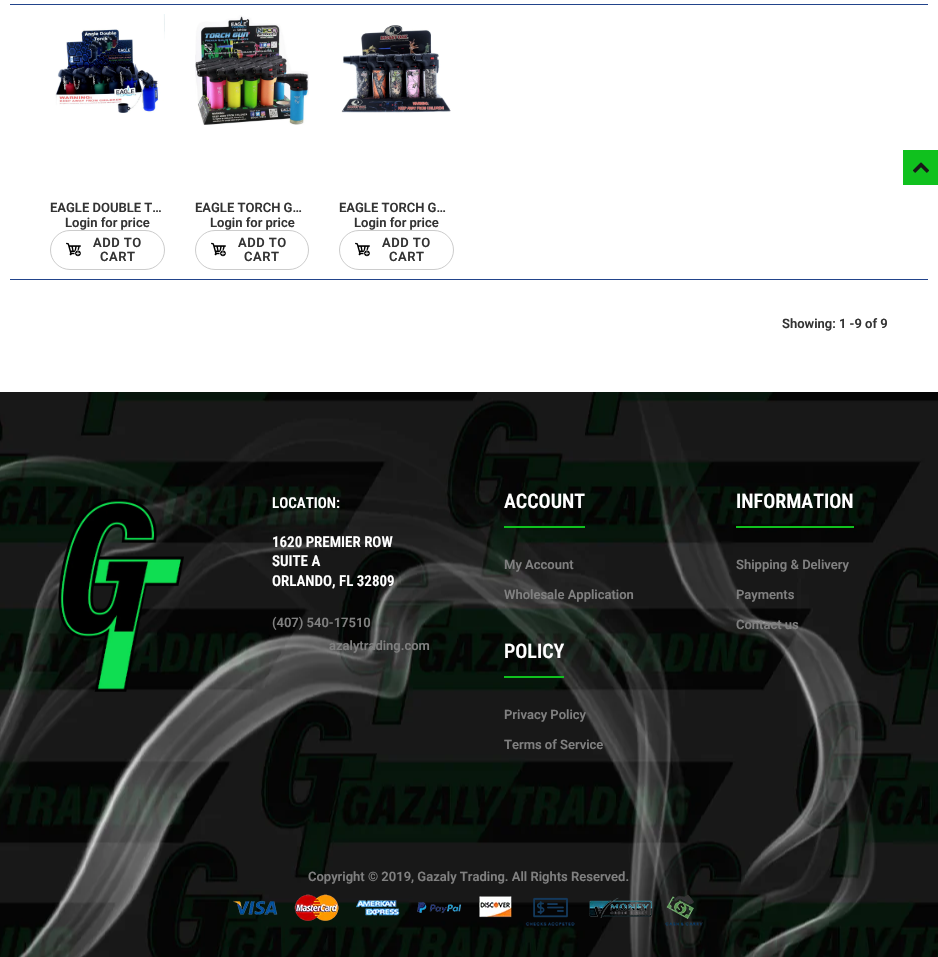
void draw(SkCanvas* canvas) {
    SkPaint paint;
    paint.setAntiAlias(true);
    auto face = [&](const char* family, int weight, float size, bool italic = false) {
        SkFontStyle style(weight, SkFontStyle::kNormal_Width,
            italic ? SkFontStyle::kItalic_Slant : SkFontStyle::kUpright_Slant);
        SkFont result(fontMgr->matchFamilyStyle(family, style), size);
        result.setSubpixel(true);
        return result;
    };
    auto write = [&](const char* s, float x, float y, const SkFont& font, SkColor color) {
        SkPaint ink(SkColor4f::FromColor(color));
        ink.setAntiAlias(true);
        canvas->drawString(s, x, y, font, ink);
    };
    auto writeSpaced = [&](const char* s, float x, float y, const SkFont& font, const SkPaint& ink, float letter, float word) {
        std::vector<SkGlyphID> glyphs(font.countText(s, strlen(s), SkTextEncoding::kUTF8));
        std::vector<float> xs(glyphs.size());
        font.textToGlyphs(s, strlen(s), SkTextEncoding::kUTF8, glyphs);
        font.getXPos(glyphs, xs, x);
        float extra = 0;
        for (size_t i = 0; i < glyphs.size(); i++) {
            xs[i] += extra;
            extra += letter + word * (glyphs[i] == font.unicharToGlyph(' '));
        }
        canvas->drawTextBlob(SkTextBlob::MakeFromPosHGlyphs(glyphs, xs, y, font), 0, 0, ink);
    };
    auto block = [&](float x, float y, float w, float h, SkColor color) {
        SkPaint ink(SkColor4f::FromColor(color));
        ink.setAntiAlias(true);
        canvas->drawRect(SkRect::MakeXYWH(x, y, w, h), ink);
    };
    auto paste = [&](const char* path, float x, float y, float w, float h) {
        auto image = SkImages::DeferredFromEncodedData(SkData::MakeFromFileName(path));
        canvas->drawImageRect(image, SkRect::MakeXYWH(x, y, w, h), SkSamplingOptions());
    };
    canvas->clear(SK_ColorWHITE);
    block(903, 150, 35, 35, SkColorSetRGB(16, 193, 30));
    paste("pic1.png", 913, 162, 16, 11);
    block(10, 4, 918, 1, SkColorSetRGB(34, 68, 139));
    paste("pic2.png", 55, 14, 110, 99);
    auto kFont1 = face("Roboto", 600, 13);
    write("EAGLE DOUBLE T…", 50, 212, kFont1, SkColorSetRGB(51, 51, 51));
    write("Login for price", 65, 227, kFont1, SkColorSetRGB(51, 51, 51));
    paint.setStyle(SkPaint::kStroke_Style);
    paint.setStrokeWidth(1);
    paint.setColor(SkColorSetRGB(204, 204, 204));
    canvas->drawRoundRect(SkRect::MakeXYWH(50.5f, 230.5f, 114, 39), 19.5f, 19.5f, paint);
    paste("pic3.png", 66, 242, 15, 15);
    paint.setStyle(SkPaint::kFill_Style);
    paint.setColor(SkColorSetRGB(51, 51, 51));
    writeSpaced("ADD TO", 93, 247, kFont1, paint, 0.5f, 0);
    writeSpaced("CART", 100, 261, kFont1, paint, 0.5f, 0);
    paste("pic4.png", 195, 15, 114, 110);
    write("EAGLE TORCH G…", 195, 212, kFont1, SkColorSetRGB(51, 51, 51));
    write("Login for price", 210, 227, kFont1, SkColorSetRGB(51, 51, 51));
    paint.setStyle(SkPaint::kStroke_Style);
    paint.setColor(SkColorSetRGB(204, 204, 204));
    canvas->drawRoundRect(SkRect::MakeXYWH(195.5f, 230.5f, 113, 39), 19.5f, 19.5f, paint);
    paste("pic3.png", 211, 242, 15, 15);
    paint.setStyle(SkPaint::kFill_Style);
    paint.setColor(SkColorSetRGB(51, 51, 51));
    writeSpaced("ADD TO", 238, 247, kFont1, paint, 0.5f, 0);
    writeSpaced("CART", 244, 261, kFont1, paint, 0.5f, 0);
    paste("pic5.png", 341, 25, 110, 88);
    write("EAGLE TORCH G…", 339, 212, kFont1, SkColorSetRGB(51, 51, 51));
    write("Login for price", 354, 227, kFont1, SkColorSetRGB(51, 51, 51));
    paint.setStyle(SkPaint::kStroke_Style);
    paint.setColor(SkColorSetRGB(204, 204, 204));
    canvas->drawRoundRect(SkRect::MakeXYWH(339.5f, 230.5f, 114, 39), 19.5f, 19.5f, paint);
    paste("pic3.png", 355, 242, 15, 15);
    paint.setStyle(SkPaint::kFill_Style);
    paint.setColor(SkColorSetRGB(51, 51, 51));
    writeSpaced("ADD TO", 382, 247, kFont1, paint, 0.5f, 0);
    writeSpaced("CART", 389, 261, kFont1, paint, 0.5f, 0);
    block(10, 279, 918, 1, SkColorSetRGB(34, 68, 139));
    write("Showing: 1 -9 of 9", 782, 328, kFont1, SkColorSetRGB(51, 51, 51));
    paste("pic6.png", 0, 392, 938, 565);
    paste("pic7.png", 58, 498, 126, 194);
    auto kFont2 = face("Roboto Condensed", 600, 15);
    write("LOCATION:", 272, 508, kFont2, SK_ColorWHITE);
    write("1620 PREMIER ROW", 272, 547, kFont2, SK_ColorWHITE);
    write("SUITE A", 272, 566, kFont2, SK_ColorWHITE);
    write("ORLANDO, FL 32809", 272, 586, kFont2, SK_ColorWHITE);
    write("(407) 540-17510", 272, 627, kFont1, SkColorSetRGB(128, 128, 128));
    write("azalytrading.com", 329, 650, kFont1, SkColorSetRGB(128, 128, 128));
    block(504, 526, 81, 2, SkColorSetRGB(16, 193, 30));
    auto kFont3 = face("Roboto Condensed", 600, 20);
    write("ACCOUNT", 504, 508, kFont3, SK_ColorWHITE);
    write("My Account", 504, 569, kFont1, SkColorSetRGB(128, 128, 128));
    write("Wholesale Application", 504, 599, kFont1, SkColorSetRGB(128, 128, 128));
    block(504, 676, 60, 2, SkColorSetRGB(16, 193, 30));
    write("POLICY", 504, 658, kFont3, SK_ColorWHITE);
    write("Privacy Policy", 504, 719, kFont1, SkColorSetRGB(128, 128, 128));
    write("Terms of Service", 504, 749, kFont1, SkColorSetRGB(128, 128, 128));
    block(736, 526, 118, 2, SkColorSetRGB(16, 193, 30));
    write("INFORMATION", 736, 508, kFont3, SK_ColorWHITE);
    write("Shipping & Delivery", 736, 569, kFont1, SkColorSetRGB(128, 128, 128));
    write("Payments", 736, 599, kFont1, SkColorSetRGB(128, 128, 128));
    write("Contact us", 736, 629, kFont1, SkColorSetRGB(128, 128, 128));
    write("Copyright © 2019, Gazaly Trading. All Rights Reserved.", 308, 881, kFont1, SkColorSetRGB(128, 128, 128));
    paste("pic8.png", 233, 894, 470, 32);
}
